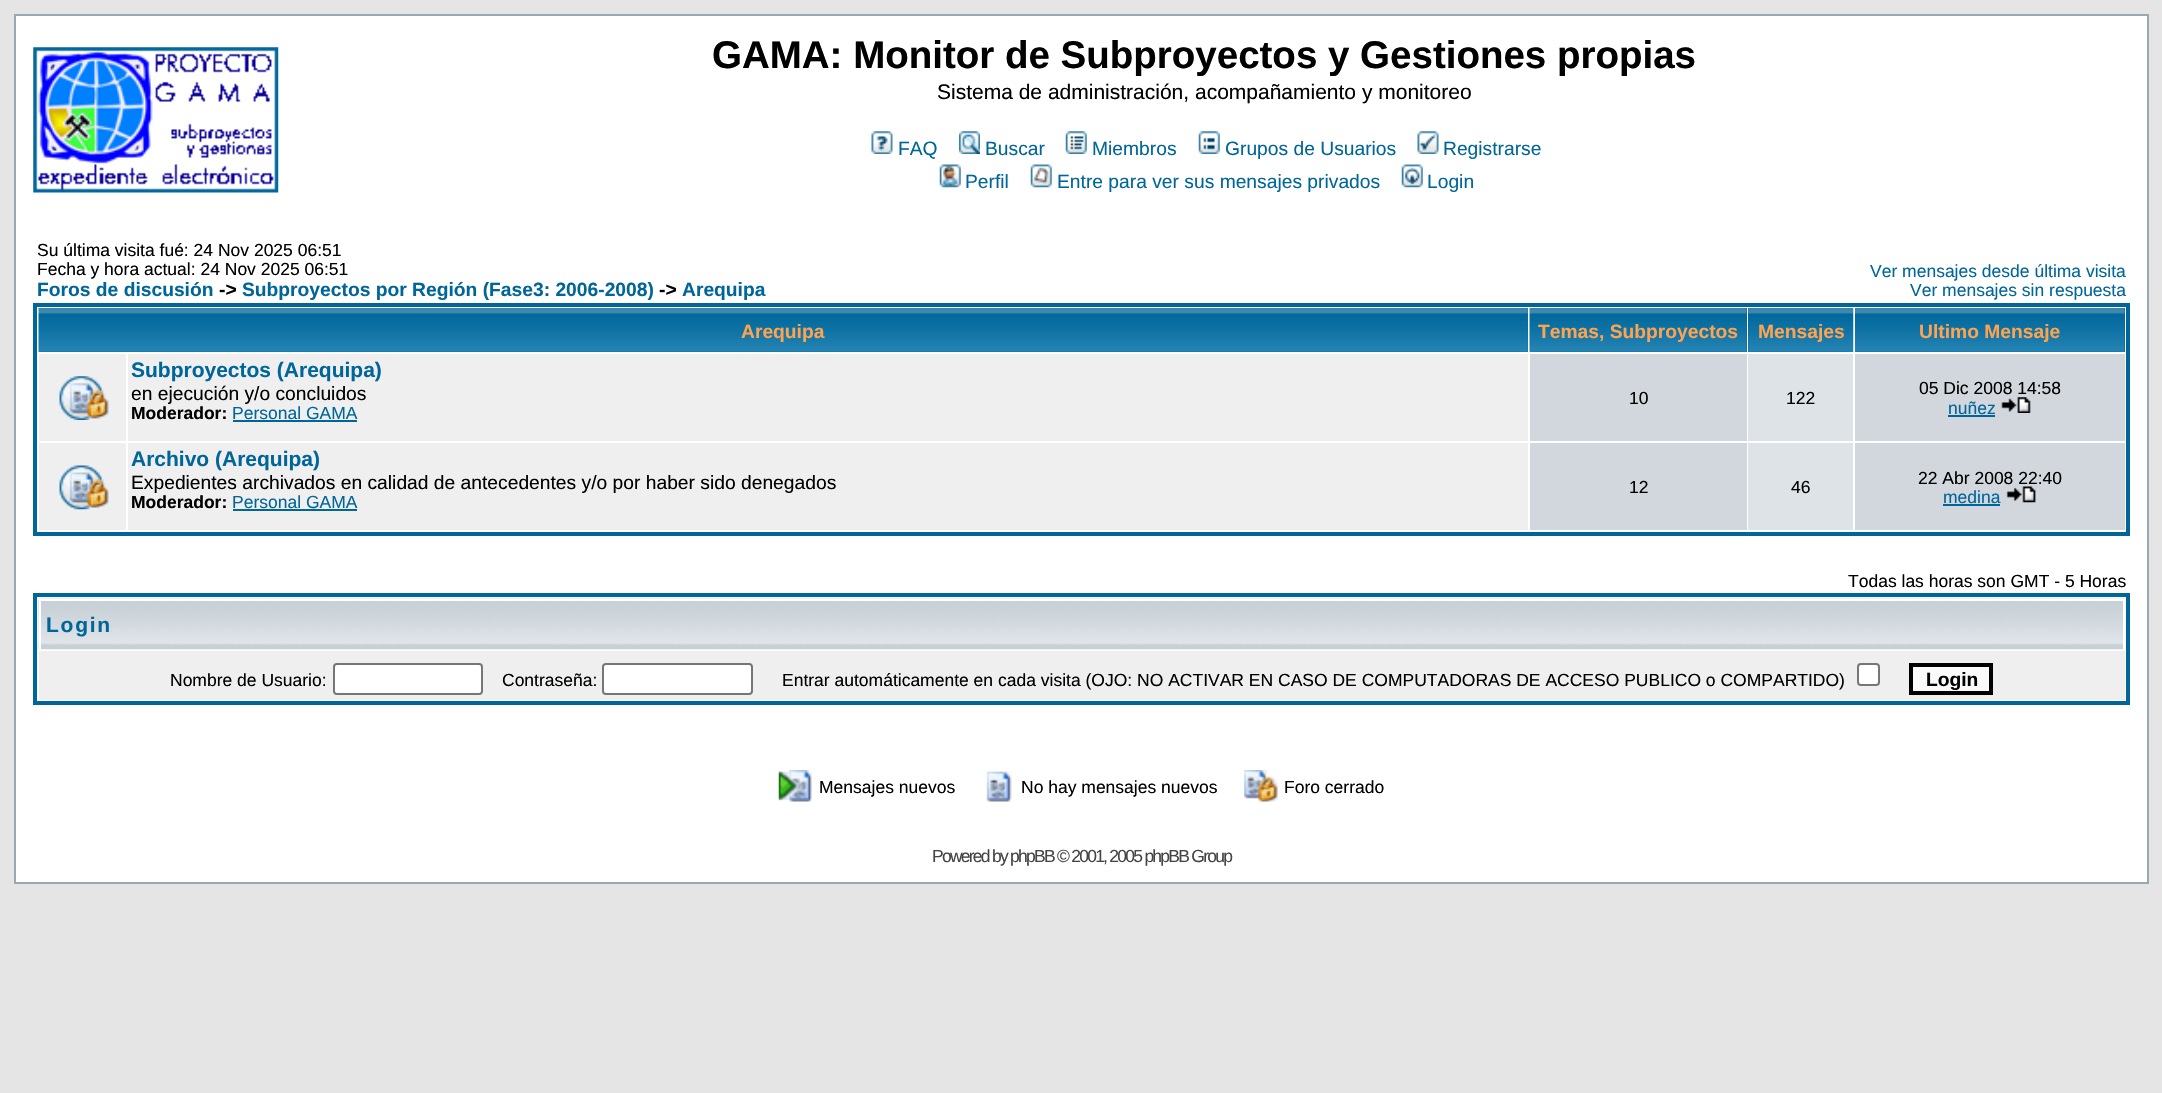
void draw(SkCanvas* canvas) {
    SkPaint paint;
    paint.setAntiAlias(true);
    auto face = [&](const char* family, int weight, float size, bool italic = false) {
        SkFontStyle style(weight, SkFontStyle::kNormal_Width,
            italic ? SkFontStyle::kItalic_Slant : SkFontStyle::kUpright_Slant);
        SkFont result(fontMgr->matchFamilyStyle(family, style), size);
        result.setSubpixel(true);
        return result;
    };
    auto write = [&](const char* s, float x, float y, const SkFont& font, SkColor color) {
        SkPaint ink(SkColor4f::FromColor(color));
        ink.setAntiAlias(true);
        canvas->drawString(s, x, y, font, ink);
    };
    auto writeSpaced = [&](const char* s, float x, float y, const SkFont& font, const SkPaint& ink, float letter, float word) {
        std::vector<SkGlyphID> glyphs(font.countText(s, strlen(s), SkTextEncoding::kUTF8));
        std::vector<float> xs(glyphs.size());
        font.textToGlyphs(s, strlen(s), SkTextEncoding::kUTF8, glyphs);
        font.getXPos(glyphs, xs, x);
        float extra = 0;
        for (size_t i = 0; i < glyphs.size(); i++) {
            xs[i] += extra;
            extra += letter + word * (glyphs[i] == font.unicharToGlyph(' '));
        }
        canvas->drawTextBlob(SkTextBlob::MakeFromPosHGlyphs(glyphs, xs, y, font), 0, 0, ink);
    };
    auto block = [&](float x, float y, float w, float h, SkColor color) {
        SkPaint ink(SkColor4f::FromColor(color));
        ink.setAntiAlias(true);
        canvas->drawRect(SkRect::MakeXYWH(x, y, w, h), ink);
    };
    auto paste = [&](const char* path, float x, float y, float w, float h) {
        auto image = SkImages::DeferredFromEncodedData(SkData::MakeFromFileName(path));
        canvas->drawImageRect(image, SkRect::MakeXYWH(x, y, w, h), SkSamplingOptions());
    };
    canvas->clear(SkColorSetRGB(229, 229, 229));
    paint.setColor(SK_ColorWHITE);
    canvas->drawRect(SkRect::MakeXYWH(15, 15, 2133, 868), paint);
    paint.setStyle(SkPaint::kStroke_Style);
    paint.setStrokeWidth(2);
    paint.setColor(SkColorSetRGB(152, 170, 177));
    canvas->drawRect(SkRect::MakeXYWH(15, 15, 2133, 868), paint);
    paste("pic1.png", 33, 47, 246, 146);
    auto kFont1 = face("Liberation Sans", 700, 38.5f);
    write("GAMA: Monitor de Subproyectos y Gestiones propias", 712, 68, kFont1, SK_ColorBLACK);
    auto kFont2 = face("Liberation Sans", 400, 21);
    write("Sistema de administración, acompañamiento y monitoreo", 937, 99, kFont2, SK_ColorBLACK);
    paste("pic2.png", 871, 131, 22, 23);
    auto kFont3 = face("Liberation Sans", 400, 19.25f);
    write("FAQ", 898, 155, kFont3, SkColorSetRGB(0, 102, 153));
    paste("pic3.png", 959, 131, 21, 23);
    write("Buscar", 985, 155, kFont3, SkColorSetRGB(0, 102, 153));
    paste("pic4.png", 1065, 131, 22, 23);
    write("Miembros", 1092, 155, kFont3, SkColorSetRGB(0, 102, 153));
    paste("pic5.png", 1198, 131, 22, 23);
    write("Grupos de Usuarios", 1225, 155, kFont3, SkColorSetRGB(0, 102, 153));
    paste("pic6.png", 1417, 131, 22, 23);
    write("Registrarse", 1443, 155, kFont3, SkColorSetRGB(0, 102, 153));
    paste("pic7.png", 939, 164, 22, 24);
    write("Perfil", 965, 188, kFont3, SkColorSetRGB(0, 102, 153));
    paste("pic8.png", 1030, 164, 22, 24);
    write("Entre para ver sus mensajes privados", 1057, 188, kFont3, SkColorSetRGB(0, 102, 153));
    paste("pic9.png", 1401, 164, 22, 24);
    write("Login", 1427, 188, kFont3, SkColorSetRGB(0, 102, 153));
    auto kFont4 = face("Liberation Sans", 400, 17.5f);
    write("Su última visita fué: 24 Nov 2025 06:51", 37, 256, kFont4, SK_ColorBLACK);
    write("Fecha y hora actual: 24 Nov 2025 06:51", 37, 275, kFont4, SK_ColorBLACK);
    auto kFont5 = face("Liberation Sans", 700, 19.25f);
    write("Foros de discusión", 37, 296, kFont5, SkColorSetRGB(0, 102, 153));
    write("->", 219, 296, kFont5, SK_ColorBLACK);
    write("Subproyectos por Región (Fase3: 2006-2008)", 242, 296, kFont5, SkColorSetRGB(0, 102, 153));
    write("->", 659, 296, kFont5, SK_ColorBLACK);
    write("Arequipa", 682, 296, kFont5, SkColorSetRGB(0, 102, 153));
    write("Ver mensajes desde última visita", 1870, 277, kFont4, SkColorSetRGB(0, 102, 153));
    write("Ver mensajes sin respuesta", 1910, 296, kFont4, SkColorSetRGB(0, 102, 153));
    paint.setStrokeWidth(4);
    paint.setColor(SkColorSetRGB(0, 102, 153));
    canvas->drawRect(SkRect::MakeXYWH(35, 305, 2093, 229), paint);
    block(39, 308, 1489, 44, SkColorSetRGB(0, 102, 153));
    paste("pic10.png", 38, 308, 1490, 44);
    write("Arequipa", 741, 338, kFont5, SkColorSetRGB(255, 163, 79));
    block(1530, 308, 217, 44, SkColorSetRGB(0, 102, 153));
    paste("pic11.png", 1529, 308, 218, 44);
    write("Temas, Subproyectos", 1538, 338, kFont5, SkColorSetRGB(255, 163, 79));
    block(1748, 308, 105, 44, SkColorSetRGB(0, 102, 153));
    paste("pic12.png", 1748, 308, 106, 44);
    write("Mensajes", 1758, 338, kFont5, SkColorSetRGB(255, 163, 79));
    block(1855, 308, 270, 44, SkColorSetRGB(0, 102, 153));
    paste("pic13.png", 1855, 308, 270, 44);
    write("Ultimo Mensaje", 1919, 338, kFont5, SkColorSetRGB(255, 163, 79));
    block(39, 354, 87, 87, SkColorSetRGB(239, 239, 239));
    paste("pic14.png", 59, 376, 50, 44);
    block(128, 354, 1400, 87, SkColorSetRGB(239, 239, 239));
    auto kFont6 = face("Liberation Sans", 700, 21);
    write("Subproyectos (Arequipa)", 131, 377, kFont6, SkColorSetRGB(0, 102, 153));
    write("en ejecución y/o concluidos", 131, 400, kFont3, SK_ColorBLACK);
    auto kFont7 = face("Liberation Sans", 700, 17.5f);
    write("Moderador:", 131, 419, kFont7, SK_ColorBLACK);
    write("Personal GAMA", 232, 419, kFont4, SkColorSetRGB(0, 102, 153));
    block(233, 420, 124, 2, SkColorSetRGB(0, 102, 153));
    block(1530, 354, 217, 87, SkColorSetRGB(209, 215, 220));
    write("10", 1629, 404, kFont4, SK_ColorBLACK);
    block(1748, 354, 105, 87, SkColorSetRGB(222, 227, 231));
    write("122", 1786, 404, kFont4, SK_ColorBLACK);
    block(1855, 354, 270, 87, SkColorSetRGB(209, 215, 220));
    write("05 Dic 2008 14:58", 1919, 394, kFont4, SK_ColorBLACK);
    write("nuñez", 1948, 414, kFont4, SkColorSetRGB(0, 102, 153));
    block(1948, 415, 47, 2, SkColorSetRGB(0, 102, 153));
    paste("pic15.png", 2001, 397, 30, 16);
    block(39, 443, 87, 87, SkColorSetRGB(239, 239, 239));
    paste("pic16.png", 59, 465, 50, 45);
    block(128, 443, 1400, 87, SkColorSetRGB(239, 239, 239));
    write("Archivo (Arequipa)", 131, 466, kFont6, SkColorSetRGB(0, 102, 153));
    write("Expedientes archivados en calidad de antecedentes y/o por haber sido denegados", 131, 489, kFont3, SK_ColorBLACK);
    write("Moderador:", 131, 508, kFont7, SK_ColorBLACK);
    write("Personal GAMA", 232, 508, kFont4, SkColorSetRGB(0, 102, 153));
    block(233, 509, 124, 2, SkColorSetRGB(0, 102, 153));
    block(1530, 443, 217, 87, SkColorSetRGB(209, 215, 220));
    write("12", 1629, 493, kFont4, SK_ColorBLACK);
    block(1748, 443, 105, 87, SkColorSetRGB(222, 227, 231));
    write("46", 1791, 493, kFont4, SK_ColorBLACK);
    block(1855, 443, 270, 87, SkColorSetRGB(209, 215, 220));
    write("22 Abr 2008 22:40", 1918, 484, kFont4, SK_ColorBLACK);
    write("medina", 1943, 503, kFont4, SkColorSetRGB(0, 102, 153));
    block(1943, 504, 57, 2, SkColorSetRGB(0, 102, 153));
    paste("pic17.png", 2006, 486, 30, 17);
    write("Todas las horas son GMT - 5 Horas", 1848, 587, kFont4, SK_ColorBLACK);
    canvas->drawRect(SkRect::MakeXYWH(35, 595, 2093, 108), paint);
    paste("pic18.png", 38, 598, 2087, 52);
    block(39, 599, 2086, 2, SK_ColorWHITE);
    block(2123, 599, 2, 50, SK_ColorWHITE);
    block(39, 599, 2, 50, SK_ColorWHITE);
    paint.setStyle(SkPaint::kFill_Style);
    writeSpaced("Login", 46, 632, kFont6, paint, 1.75f, 0);
    block(39, 651, 2086, 49, SkColorSetRGB(239, 239, 239));
    write("Nombre de Usuario:", 170, 686, kFont4, SK_ColorBLACK);
    paint.setColor(SK_ColorWHITE);
    canvas->drawRoundRect(SkRect::MakeXYWH(334, 664, 148, 30), 3, 3, paint);
    paint.setStyle(SkPaint::kStroke_Style);
    paint.setStrokeWidth(2);
    paint.setColor(SkColorSetRGB(118, 118, 118));
    canvas->drawRoundRect(SkRect::MakeXYWH(334, 664, 148, 30), 3, 3, paint);
    write("Contraseña:", 502, 686, kFont4, SK_ColorBLACK);
    paint.setStyle(SkPaint::kFill_Style);
    paint.setColor(SK_ColorWHITE);
    canvas->drawRoundRect(SkRect::MakeXYWH(603, 664, 149, 30), 3, 3, paint);
    paint.setStyle(SkPaint::kStroke_Style);
    paint.setColor(SkColorSetRGB(118, 118, 118));
    canvas->drawRoundRect(SkRect::MakeXYWH(603, 664, 149, 30), 3, 3, paint);
    write("Entrar automáticamente en cada visita (OJO: NO ACTIVAR EN CASO DE COMPUTADORAS DE ACCESO PUBLICO o COMPARTIDO)", 782, 686, kFont4, SK_ColorBLACK);
    paint.setStyle(SkPaint::kFill_Style);
    paint.setColor(SK_ColorWHITE);
    canvas->drawRoundRect(SkRect::MakeXYWH(1858, 664, 21, 21), 3, 3, paint);
    paint.setStyle(SkPaint::kStroke_Style);
    paint.setColor(SkColorSetRGB(118, 118, 118));
    canvas->drawRoundRect(SkRect::MakeXYWH(1858, 664, 21, 21), 3, 3, paint);
    paint.setStyle(SkPaint::kFill_Style);
    paint.setColor(SkColorSetRGB(250, 250, 250));
    canvas->drawRect(SkRect::MakeXYWH(1911, 665, 80, 28), paint);
    paint.setStyle(SkPaint::kStroke_Style);
    paint.setStrokeWidth(4);
    paint.setColor(SK_ColorBLACK);
    canvas->drawRect(SkRect::MakeXYWH(1911, 665, 80, 28), paint);
    write("Login", 1926, 686, kFont5, SK_ColorBLACK);
    paste("pic19.png", 778, 770, 34, 32);
    write("Mensajes nuevos", 819, 793, kFont4, SK_ColorBLACK);
    paste("pic20.png", 986, 771, 26, 31);
    write("No hay mensajes nuevos", 1021, 793, kFont4, SK_ColorBLACK);
    paste("pic21.png", 1244, 770, 34, 32);
    write("Foro cerrado", 1284, 793, kFont4, SK_ColorBLACK);
    paint.setStyle(SkPaint::kFill_Style);
    paint.setColor(SkColorSetRGB(68, 68, 68));
    writeSpaced("Powered by phpBB © 2001, 2005 phpBB Group", 932, 862, kFont4, paint, -1.75f, 0);
}
